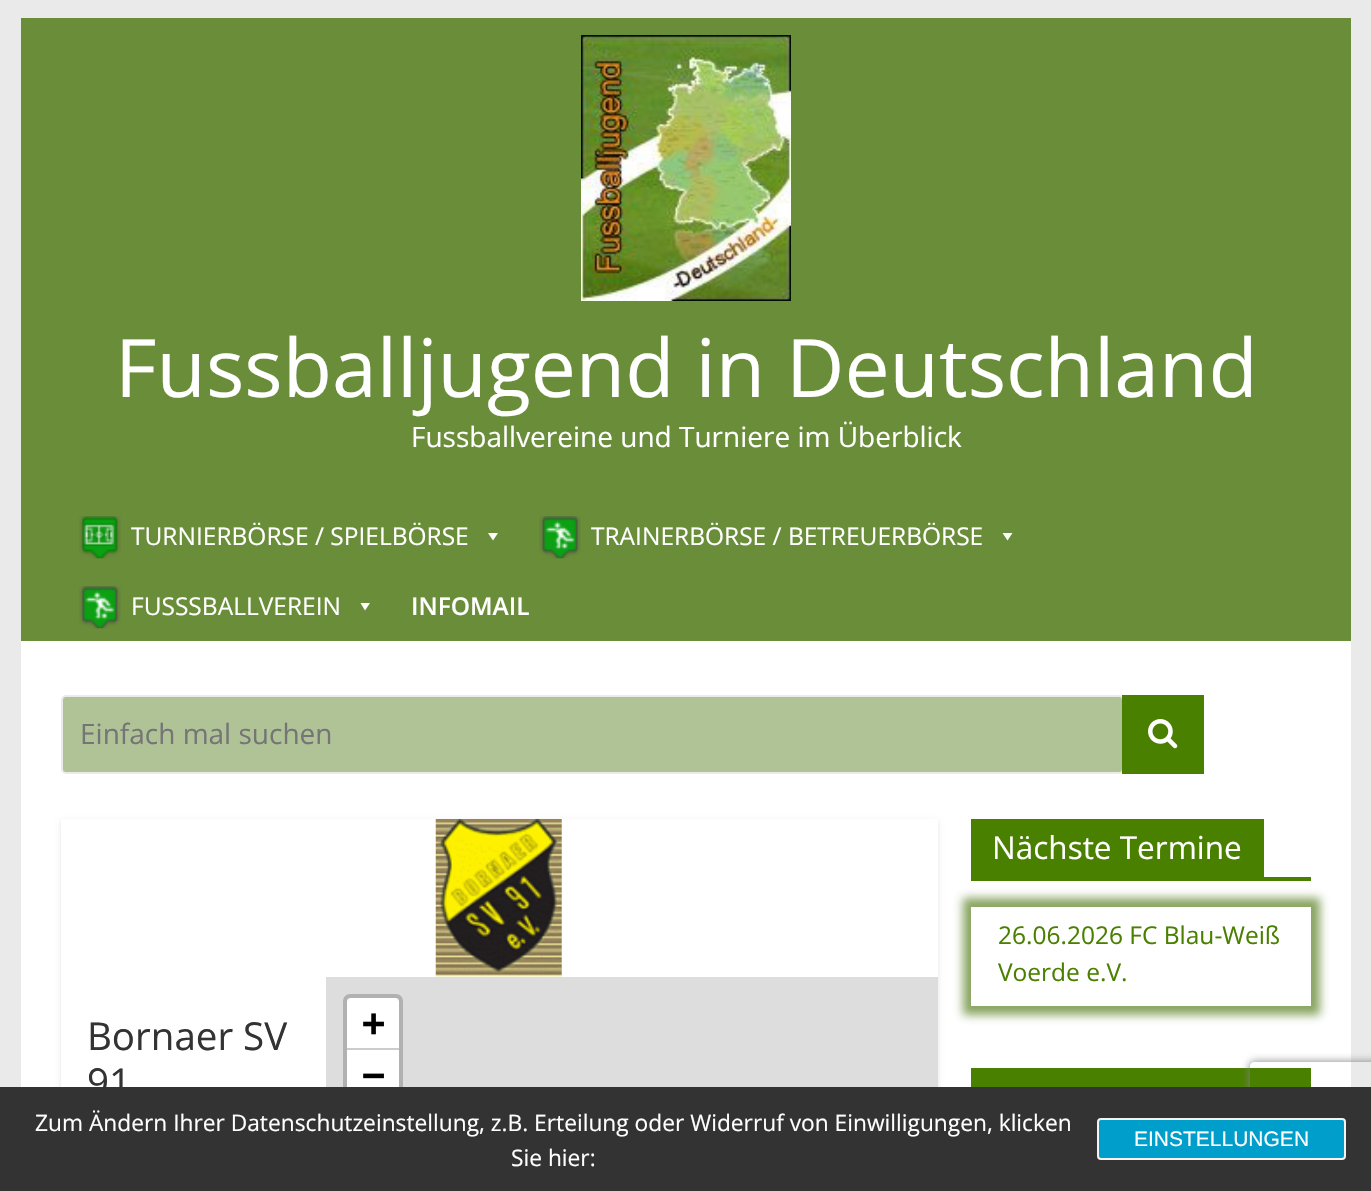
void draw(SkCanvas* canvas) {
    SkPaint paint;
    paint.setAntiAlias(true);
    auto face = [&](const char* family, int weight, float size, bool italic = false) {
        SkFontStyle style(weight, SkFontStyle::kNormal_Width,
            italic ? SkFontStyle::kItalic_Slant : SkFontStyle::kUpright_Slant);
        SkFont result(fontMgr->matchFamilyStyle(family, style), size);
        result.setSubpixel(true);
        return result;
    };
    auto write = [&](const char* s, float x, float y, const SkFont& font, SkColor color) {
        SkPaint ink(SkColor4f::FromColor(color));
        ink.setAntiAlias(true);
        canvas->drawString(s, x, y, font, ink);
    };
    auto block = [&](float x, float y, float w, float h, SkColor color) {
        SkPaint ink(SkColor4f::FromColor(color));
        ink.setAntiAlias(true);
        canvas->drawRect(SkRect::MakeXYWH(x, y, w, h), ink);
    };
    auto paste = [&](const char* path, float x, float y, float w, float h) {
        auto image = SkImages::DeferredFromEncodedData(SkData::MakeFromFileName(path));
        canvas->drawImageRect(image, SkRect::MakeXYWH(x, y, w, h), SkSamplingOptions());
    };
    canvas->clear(SkColorSetRGB(234, 234, 234));
    block(21, 18, 1330, 623, SkColorSetRGB(106, 141, 57));
    paste("pic1.png", 581, 35, 210, 266);
    auto kFont1 = face("Open Sans", 400, 80.5f);
    write("Fussballjugend in Deutschland", 115, 397, kFont1, SK_ColorWHITE);
    auto kFont2 = face("Open Sans", 400, 28);
    write("Fussballvereine und Turniere im Überblick", 411, 447, kFont2, SK_ColorWHITE);
    paste("pic2.png", 79, 516, 42, 43);
    auto kFont3 = face("Open Sans", 400, 24.5f);
    write("TURNIERBÖRSE / SPIELBÖRSE", 131, 545, kFont3, SK_ColorWHITE);
    paint.setColor(SK_ColorWHITE);
    canvas->drawPath(SkPathBuilder().moveTo(498, 533).lineTo(493, 540.5f).lineTo(488, 533).close().detach(), paint);
    paste("pic3.png", 539, 516, 42, 43);
    write("TRAINERBÖRSE / BETREUERBÖRSE", 591, 545, kFont3, SK_ColorWHITE);
    canvas->drawPath(SkPathBuilder().moveTo(1012.5f, 533).lineTo(1007.5f, 540.5f).lineTo(1002.5f, 533).close().detach(), paint);
    paste("pic4.png", 79, 586, 42, 43);
    write("FUSSSBALLVEREIN", 131, 615, kFont3, SK_ColorWHITE);
    canvas->drawPath(SkPathBuilder().moveTo(370, 603).lineTo(365, 610.5f).lineTo(360.5f, 603).close().detach(), paint);
    auto kFont4 = face("Open Sans", 600, 24.5f);
    write("INFOMAIL", 411, 615, kFont4, SK_ColorWHITE);
    block(21, 641, 1330, 446, SK_ColorWHITE);
    paint.setColor(SkColorSetRGB(176, 195, 150));
    canvas->drawRoundRect(SkRect::MakeXYWH(62, 696, 1061, 77), 4, 4, paint);
    paint.setStyle(SkPaint::kStroke_Style);
    paint.setStrokeWidth(2);
    paint.setColor(SkColorSetRGB(234, 234, 234));
    canvas->drawRoundRect(SkRect::MakeXYWH(62, 696, 1061, 77), 4, 4, paint);
    write("Einfach mal suchen", 80, 744, kFont2, SkColorSetRGB(117, 117, 117));
    block(1122, 695, 82, 79, SkColorSetRGB(74, 128, 0));
    paste("pic5.png", 1148, 719, 30, 30);
    block(971, 877, 340, 4, SkColorSetRGB(74, 128, 0));
    block(971, 819, 293, 58, SkColorSetRGB(74, 128, 0));
    auto kFont5 = face("Open Sans", 400, 31.5f);
    write("Nächste Termine", 992, 859, kFont5, SK_ColorWHITE);
    canvas->save();
    canvas->clipPath(SkPathBuilder(SkPathFillType::kEvenOdd).moveTo(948, 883).lineTo(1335, 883).lineTo(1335, 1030).lineTo(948, 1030).close().moveTo(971, 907).lineTo(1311, 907).lineTo(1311, 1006).lineTo(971, 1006).close().detach(), true);
    paint.setStyle(SkPaint::kFill_Style);
    paint.setColor(SkColorSetARGB(204, 106, 141, 57));
    paint.setMaskFilter(SkMaskFilter::MakeBlur(kNormal_SkBlurStyle, 4.5f));
    canvas->drawRect(SkRect::MakeXYWH(963, 898, 357, 117), paint);
    paint.setMaskFilter(nullptr);
    canvas->restore();
    write("26.06.2026 FC Blau-Weiß", 998, 944, kFont3, SkColorSetRGB(74, 128, 0));
    write("Voerde e.V.", 998, 981, kFont3, SkColorSetRGB(74, 128, 0));
    block(971, 1068, 340, 19, SkColorSetRGB(74, 128, 0));
    canvas->save();
    canvas->clipPath(SkPathBuilder(SkPathFillType::kEvenOdd).moveTo(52, 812).lineTo(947, 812).lineTo(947, 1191).lineTo(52, 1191).close().moveTo(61, 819).lineTo(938, 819).lineTo(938, 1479).lineTo(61, 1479).close().detach(), true);
    paint.setColor(SkColorSetARGB(26, 0, 0, 0));
    paint.setMaskFilter(SkMaskFilter::MakeBlur(kNormal_SkBlurStyle, 2.5f));
    canvas->drawRect(SkRect::MakeXYWH(61, 821, 877, 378), paint);
    paint.setMaskFilter(nullptr);
    canvas->restore();
    paste("pic6.png", 435, 819, 127, 158);
    auto kFont6 = face("Open Sans", 400, 38.5f);
    write("Bornaer SV", 87, 1050, kFont6, SkColorSetRGB(51, 51, 51));
    write("91", 87, 1096, kFont6, SkColorSetRGB(51, 51, 51));
    block(326, 977, 612, 110, SkColorSetRGB(221, 221, 221));
    paint.setStyle(SkPaint::kStroke_Style);
    paint.setStrokeWidth(4);
    paint.setColor(SkColorSetRGB(177, 177, 177));
    canvas->drawRoundRect(SkRect::MakeXYWH(345, 996, 56, 108), 5, 5, paint);
    paint.setStyle(SkPaint::kFill_Style);
    paint.setColor(SK_ColorWHITE);
    canvas->drawPath(SkPathBuilder().moveTo(351, 998).lineTo(395, 998).cubicTo(397, 998, 399, 1000, 399, 1002).lineTo(399, 1050).lineTo(347, 1050).lineTo(347, 1002).cubicTo(347, 1000, 349, 998, 351, 998).close().detach(), paint);
    block(347, 1048, 52, 2, SkColorSetRGB(204, 204, 204));
    auto kFont7 = face("DejaVu Sans Mono", 700, 38.5f);
    write("+", 362, 1036, kFont7, SK_ColorBLACK);
    block(347, 1050, 52, 37, SK_ColorWHITE);
    write("−", 362, 1088, kFont7, SK_ColorBLACK);
    canvas->save();
    canvas->clipPath(SkPathBuilder(SkPathFillType::kEvenOdd).moveTo(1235, 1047).lineTo(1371, 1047).lineTo(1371, 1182).lineTo(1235, 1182).close().moveTo(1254, 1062).lineTo(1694, 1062).cubicTo(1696, 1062, 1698, 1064, 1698, 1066).lineTo(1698, 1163).cubicTo(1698, 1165, 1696, 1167, 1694, 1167).lineTo(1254, 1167).cubicTo(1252, 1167, 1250, 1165, 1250, 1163).lineTo(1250, 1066).cubicTo(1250, 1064, 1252, 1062, 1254, 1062).close().detach(), true);
    paint.setColor(SkColorSetRGB(128, 128, 128));
    paint.setMaskFilter(SkMaskFilter::MakeBlur(kNormal_SkBlurStyle, 4.5f));
    canvas->drawRoundRect(SkRect::MakeXYWH(1250, 1062, 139, 105), 4, 4, paint);
    paint.setMaskFilter(nullptr);
    canvas->restore();
    block(0, 1087, 1371, 104, SkColorSetRGB(51, 51, 51));
    auto kFont8 = face("Open Sans", 400, 22.75f);
    write("Zum Ändern Ihrer Datenschutzeinstellung, z.B. Erteilung oder Widerruf von Einwilligungen, klicken", 35, 1131, kFont8, SK_ColorWHITE);
    write("Sie hier:", 511, 1166, kFont8, SK_ColorWHITE);
    paint.setColor(SkColorSetRGB(0, 158, 203));
    canvas->drawRoundRect(SkRect::MakeXYWH(1098, 1119, 247, 40), 3, 3, paint);
    paint.setStyle(SkPaint::kStroke_Style);
    paint.setStrokeWidth(2);
    paint.setColor(SkColorSetRGB(243, 243, 243));
    canvas->drawRoundRect(SkRect::MakeXYWH(1098, 1119, 247, 40), 3, 3, paint);
    auto kFont9 = face("Liberation Sans", 400, 21);
    write("EINSTELLUNGEN", 1134, 1146, kFont9, SK_ColorWHITE);
}
